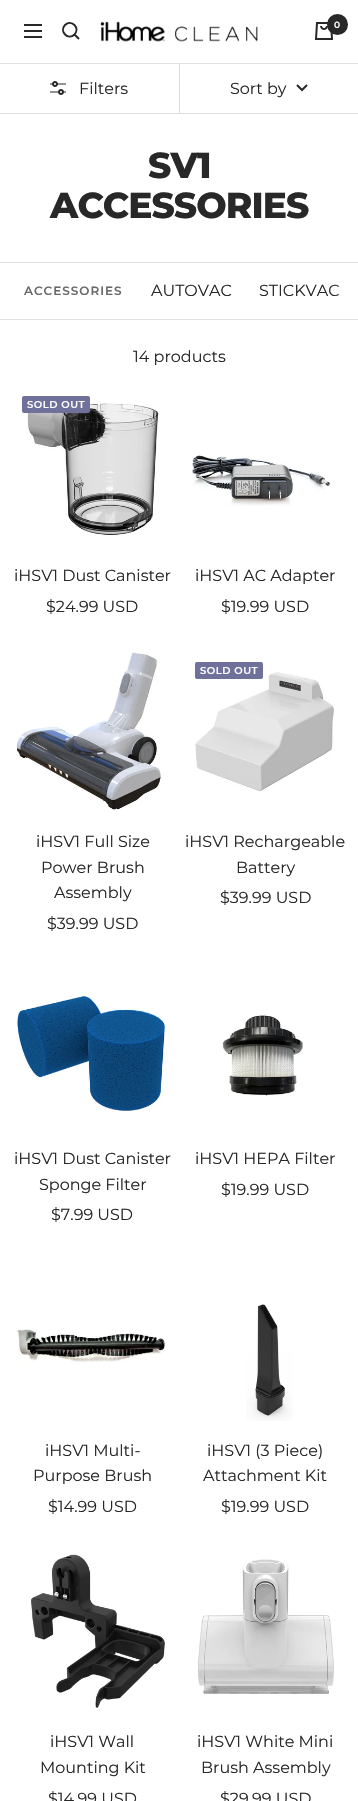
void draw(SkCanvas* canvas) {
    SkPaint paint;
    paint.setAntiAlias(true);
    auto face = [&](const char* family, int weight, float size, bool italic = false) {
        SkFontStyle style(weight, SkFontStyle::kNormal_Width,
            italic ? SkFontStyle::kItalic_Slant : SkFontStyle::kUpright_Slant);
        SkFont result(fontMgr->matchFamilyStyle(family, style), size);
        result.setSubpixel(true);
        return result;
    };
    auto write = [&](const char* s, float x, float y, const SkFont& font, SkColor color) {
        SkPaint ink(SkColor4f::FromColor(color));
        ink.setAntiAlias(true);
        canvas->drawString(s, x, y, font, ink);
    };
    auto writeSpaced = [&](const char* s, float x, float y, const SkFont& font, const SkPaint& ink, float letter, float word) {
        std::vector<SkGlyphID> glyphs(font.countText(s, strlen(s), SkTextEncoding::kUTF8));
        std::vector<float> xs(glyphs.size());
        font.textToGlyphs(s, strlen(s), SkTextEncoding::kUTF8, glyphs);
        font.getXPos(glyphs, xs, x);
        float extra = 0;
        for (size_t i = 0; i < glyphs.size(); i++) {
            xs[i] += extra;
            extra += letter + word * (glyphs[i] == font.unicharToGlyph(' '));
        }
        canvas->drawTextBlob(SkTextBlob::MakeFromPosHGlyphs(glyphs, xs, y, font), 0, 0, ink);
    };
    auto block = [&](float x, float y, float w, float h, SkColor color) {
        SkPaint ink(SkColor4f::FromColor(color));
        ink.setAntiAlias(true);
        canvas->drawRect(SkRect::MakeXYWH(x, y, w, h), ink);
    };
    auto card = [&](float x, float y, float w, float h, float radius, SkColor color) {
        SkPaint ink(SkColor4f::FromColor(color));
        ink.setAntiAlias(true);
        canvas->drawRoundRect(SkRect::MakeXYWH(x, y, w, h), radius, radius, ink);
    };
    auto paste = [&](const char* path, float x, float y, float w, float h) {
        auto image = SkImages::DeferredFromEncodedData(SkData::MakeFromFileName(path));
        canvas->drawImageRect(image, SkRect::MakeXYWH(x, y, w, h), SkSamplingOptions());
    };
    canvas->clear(SK_ColorWHITE);
    paint.setStyle(SkPaint::kStroke_Style);
    paint.setStrokeWidth(2);
    paint.setColor(SkColorSetRGB(40, 40, 40));
    canvas->drawPath(SkPathBuilder().moveTo(24, 25).lineTo(42, 25).moveTo(24, 37).lineTo(42, 37).close().moveTo(24, 31).lineTo(42, 31).close().moveTo(74.5f, 34.5f).cubicTo(80.5f, 28, 71.5f, 19, 65, 25).cubicTo(59, 31.5f, 68, 40.5f, 74.5f, 34.5f).close().moveTo(74.5f, 34.5f).lineTo(79, 39).detach(), paint);
    paste("pic1.png", 100, 21, 158, 21);
    paste("pic2.png", 314, 22, 20, 18);
    paint.setStyle(SkPaint::kFill_Style);
    canvas->drawCircle(337.5f, 24.5f, 10.5f, paint);
    auto kFont1 = face("Montserrat", 600, 9);
    write("0", 334, 28, kFont1, SK_ColorWHITE);
    block(0, 63, 358, 1, SkColorSetRGB(223, 223, 223));
    block(0, 113, 358, 1, SkColorSetRGB(223, 223, 223));
    paste("pic3.png", 50, 81, 16, 14);
    auto kFont2 = face("Montserrat", 400, 16);
    write("Filters", 79, 94, kFont2, SkColorSetRGB(40, 40, 40));
    block(179, 63, 1, 51, SkColorSetRGB(223, 223, 223));
    write("Sort by", 230, 94, kFont2, SkColorSetRGB(40, 40, 40));
    paint.setStyle(SkPaint::kStroke_Style);
    canvas->drawPath(SkPathBuilder().moveTo(297, 85).lineTo(302, 90).lineTo(307, 85).detach(), paint);
    auto kFont3 = face("Montserrat", 800, 36);
    paint.setStyle(SkPaint::kFill_Style);
    writeSpaced("SV1", 148, 178, kFont3, paint, -0.9f, 0);
    writeSpaced("ACCESSORIES", 50, 218, kFont3, paint, -0.9f, 0);
    block(0, 262, 358, 1, SkColorSetRGB(223, 223, 223));
    block(0, 319, 358, 1, SkColorSetRGB(223, 223, 223));
    write("AUTOVAC", 151, 296, kFont2, SkColorSetRGB(40, 40, 40));
    write("STICKVAC", 259, 296, kFont2, SkColorSetRGB(40, 40, 40));
    auto kFont4 = face("Montserrat", 600, 12);
    paint.setColor(SkColorSetRGB(105, 105, 105));
    writeSpaced("ACCESSORIES", 24, 295, kFont4, paint, 1, 0);
    {
        const SkColor colors[] = {SK_ColorWHITE, SkColorSetARGB(0, 255, 255, 255)};
        const float stops[] = {0, 1};
        const SkPoint ends[] = {{358, 291}, {334, 291}};
        paint.setShader(SkGradientShader::MakeLinear(ends, colors, stops, 2, SkTileMode::kClamp));
        paint.setAlpha(255);
    }
    canvas->drawRect(SkRect::MakeXYWH(335, 284, 5, 12), paint);
    write("14 products", 133, 362, kFont2, SkColorSetRGB(40, 40, 40));
    paste("pic4.png", 27, 396, 132, 140);
    card(22, 396, 68, 17, 2, SkColorSetRGB(111, 113, 155));
    auto kFont5 = face("Montserrat", 600, 10);
    paint.setShader(nullptr);
    paint.setColor(SK_ColorWHITE);
    writeSpaced("SOLD OUT", 27, 408, kFont5, paint, 0.5f, 0);
    write("iHSV1 Dust Canister", 14, 581, kFont2, SkColorSetRGB(40, 40, 40));
    write("$24.99 USD", 46, 612, kFont2, SkColorSetRGB(40, 40, 40));
    paste("pic5.png", 192, 454, 139, 52);
    write("iHSV1 AC Adapter", 195, 581, kFont2, SkColorSetRGB(40, 40, 40));
    write("$19.99 USD", 221, 612, kFont2, SkColorSetRGB(40, 40, 40));
    paste("pic6.png", 16, 652, 145, 158);
    write("iHSV1 Full Size", 36, 847, kFont2, SkColorSetRGB(40, 40, 40));
    write("Power Brush", 41, 873, kFont2, SkColorSetRGB(40, 40, 40));
    write("Assembly", 54, 898, kFont2, SkColorSetRGB(40, 40, 40));
    write("$39.99 USD", 47, 929, kFont2, SkColorSetRGB(40, 40, 40));
    paste("pic7.png", 195, 672, 139, 120);
    card(195, 662, 68, 17, 2, SkColorSetRGB(111, 113, 155));
    writeSpaced("SOLD OUT", 200, 674, kFont5, paint, 0.5f, 0);
    write("iHSV1 Rechargeable", 185, 847, kFont2, SkColorSetRGB(40, 40, 40));
    write("Battery", 236, 873, kFont2, SkColorSetRGB(40, 40, 40));
    write("$39.99 USD", 220, 903, kFont2, SkColorSetRGB(40, 40, 40));
    paste("pic8.png", 16, 995, 151, 116);
    write("iHSV1 Dust Canister", 14, 1164, kFont2, SkColorSetRGB(40, 40, 40));
    write("Sponge Filter", 39, 1190, kFont2, SkColorSetRGB(40, 40, 40));
    write("$7.99 USD", 51, 1220, kFont2, SkColorSetRGB(40, 40, 40));
    paste("pic9.png", 222, 1015, 81, 81);
    write("iHSV1 HEPA Filter", 195, 1164, kFont2, SkColorSetRGB(40, 40, 40));
    write("$19.99 USD", 221, 1195, kFont2, SkColorSetRGB(40, 40, 40));
    paste("pic10.png", 17, 1329, 148, 57);
    write("iHSV1 Multi-", 45, 1456, kFont2, SkColorSetRGB(40, 40, 40));
    write("Purpose Brush", 33, 1481, kFont2, SkColorSetRGB(40, 40, 40));
    write("$14.99 USD", 48, 1512, kFont2, SkColorSetRGB(40, 40, 40));
    paste("pic11.png", 246, 1304, 47, 117);
    write("iHSV1 (3 Piece)", 207, 1456, kFont2, SkColorSetRGB(40, 40, 40));
    write("Attachment Kit", 203, 1481, kFont2, SkColorSetRGB(40, 40, 40));
    write("$19.99 USD", 221, 1512, kFont2, SkColorSetRGB(40, 40, 40));
    paste("pic12.png", 31, 1554, 134, 154);
    write("iHSV1 Wall", 50, 1747, kFont2, SkColorSetRGB(40, 40, 40));
    write("Mounting Kit", 40, 1773, kFont2, SkColorSetRGB(40, 40, 40));
    write("$14.99 USD", 48, 1804, kFont2, SkColorSetRGB(40, 40, 40));
    paste("pic13.png", 196, 1559, 138, 135);
    write("iHSV1 White Mini", 197, 1747, kFont2, SkColorSetRGB(40, 40, 40));
    write("Brush Assembly", 201, 1773, kFont2, SkColorSetRGB(40, 40, 40));
    write("$29.99 USD", 220, 1804, kFont2, SkColorSetRGB(40, 40, 40));
}
